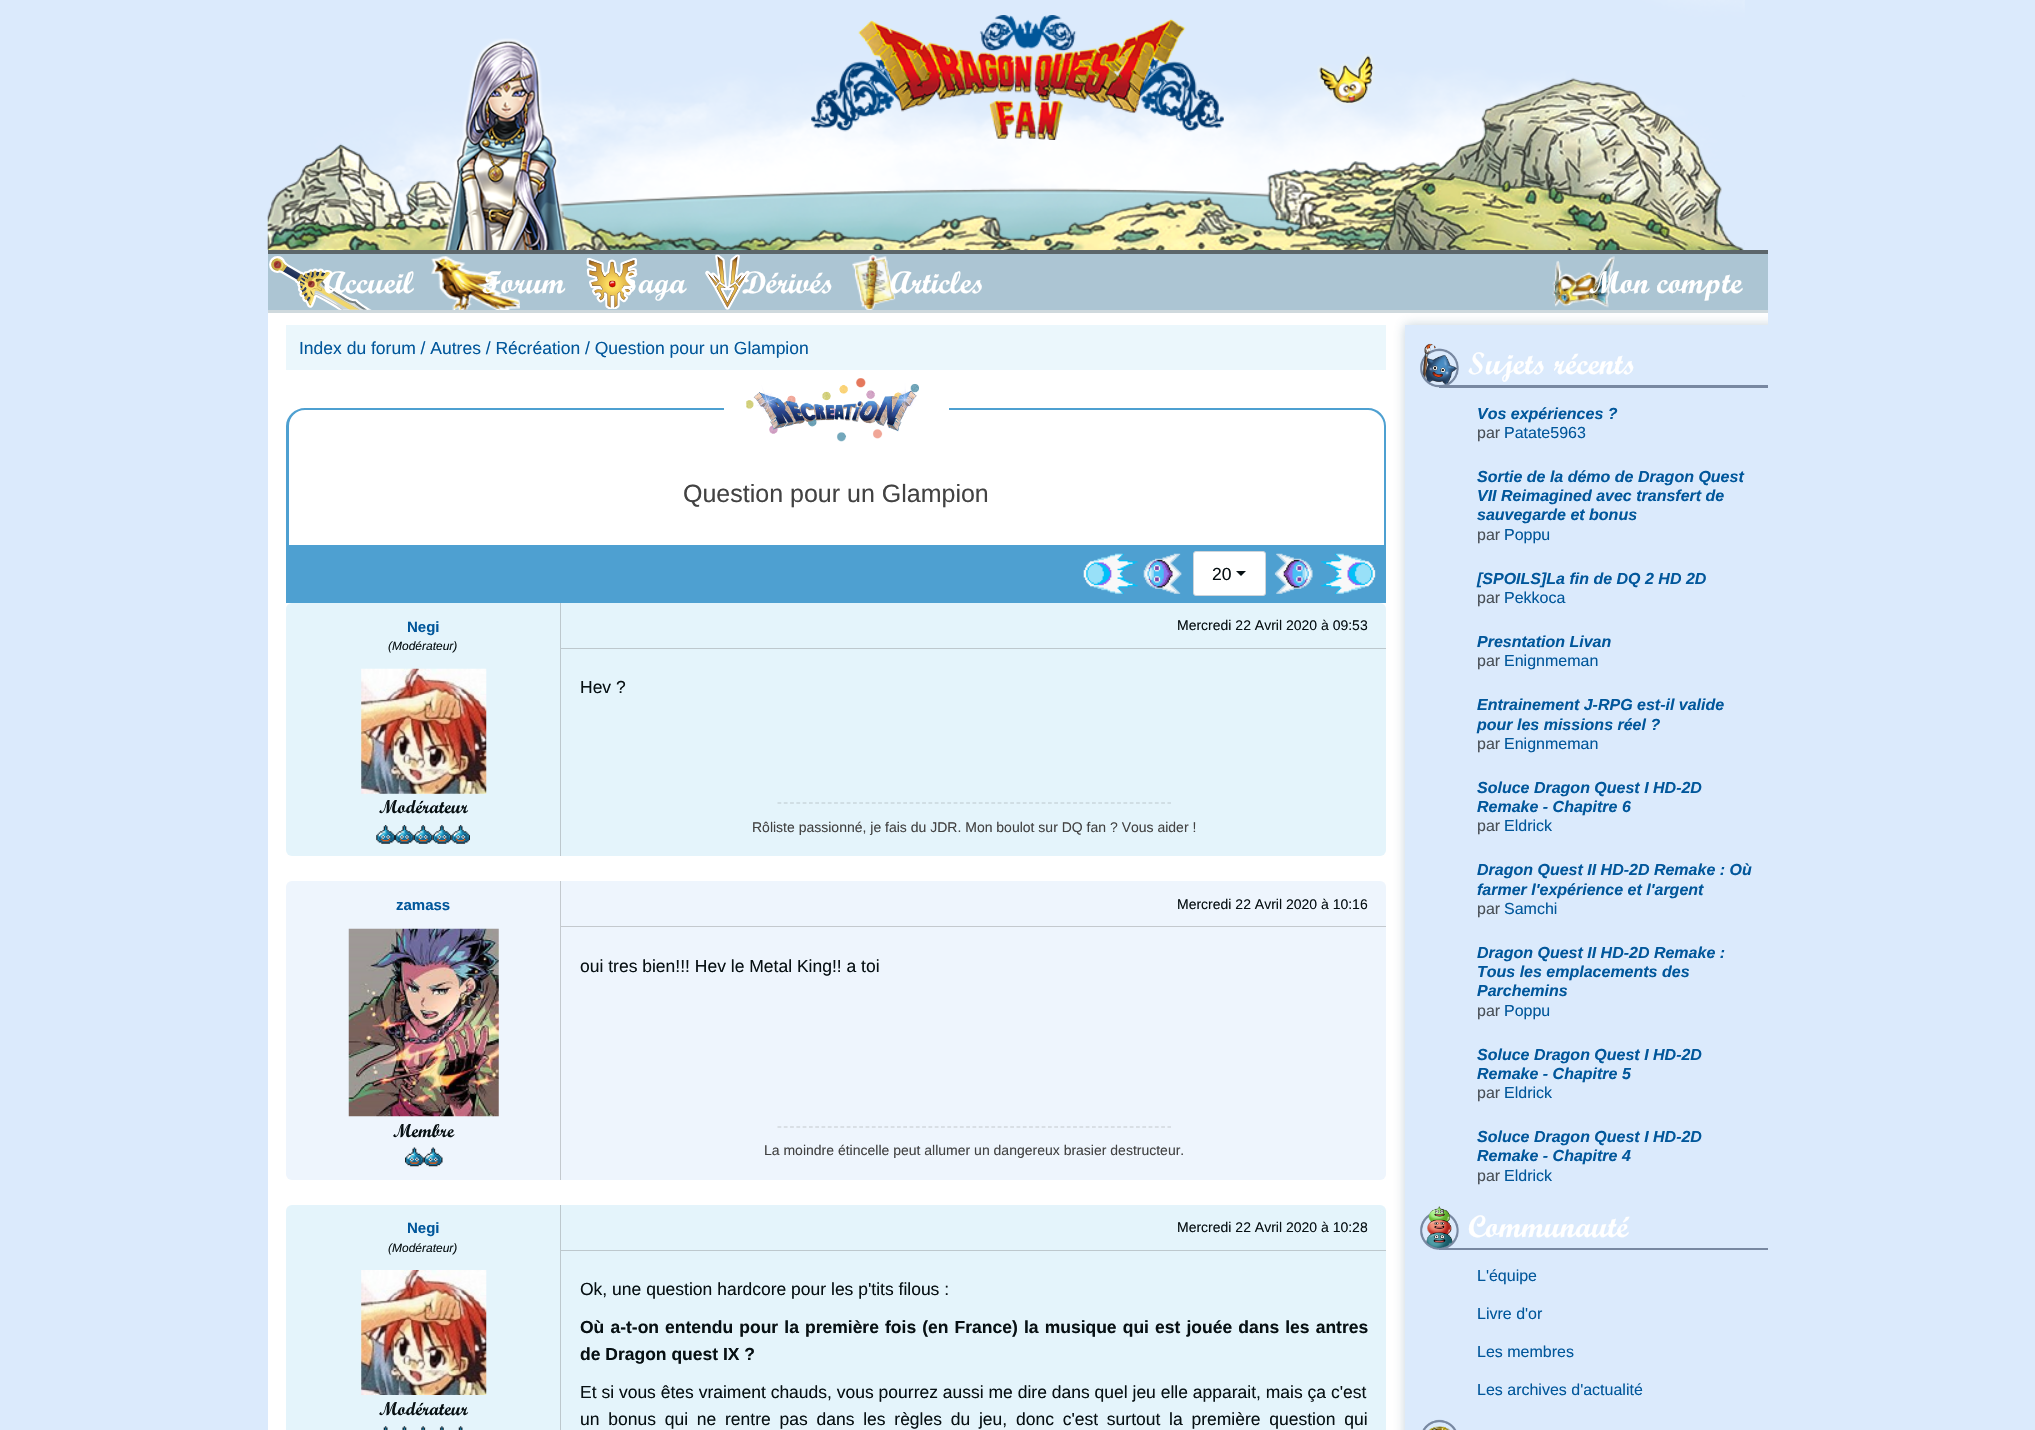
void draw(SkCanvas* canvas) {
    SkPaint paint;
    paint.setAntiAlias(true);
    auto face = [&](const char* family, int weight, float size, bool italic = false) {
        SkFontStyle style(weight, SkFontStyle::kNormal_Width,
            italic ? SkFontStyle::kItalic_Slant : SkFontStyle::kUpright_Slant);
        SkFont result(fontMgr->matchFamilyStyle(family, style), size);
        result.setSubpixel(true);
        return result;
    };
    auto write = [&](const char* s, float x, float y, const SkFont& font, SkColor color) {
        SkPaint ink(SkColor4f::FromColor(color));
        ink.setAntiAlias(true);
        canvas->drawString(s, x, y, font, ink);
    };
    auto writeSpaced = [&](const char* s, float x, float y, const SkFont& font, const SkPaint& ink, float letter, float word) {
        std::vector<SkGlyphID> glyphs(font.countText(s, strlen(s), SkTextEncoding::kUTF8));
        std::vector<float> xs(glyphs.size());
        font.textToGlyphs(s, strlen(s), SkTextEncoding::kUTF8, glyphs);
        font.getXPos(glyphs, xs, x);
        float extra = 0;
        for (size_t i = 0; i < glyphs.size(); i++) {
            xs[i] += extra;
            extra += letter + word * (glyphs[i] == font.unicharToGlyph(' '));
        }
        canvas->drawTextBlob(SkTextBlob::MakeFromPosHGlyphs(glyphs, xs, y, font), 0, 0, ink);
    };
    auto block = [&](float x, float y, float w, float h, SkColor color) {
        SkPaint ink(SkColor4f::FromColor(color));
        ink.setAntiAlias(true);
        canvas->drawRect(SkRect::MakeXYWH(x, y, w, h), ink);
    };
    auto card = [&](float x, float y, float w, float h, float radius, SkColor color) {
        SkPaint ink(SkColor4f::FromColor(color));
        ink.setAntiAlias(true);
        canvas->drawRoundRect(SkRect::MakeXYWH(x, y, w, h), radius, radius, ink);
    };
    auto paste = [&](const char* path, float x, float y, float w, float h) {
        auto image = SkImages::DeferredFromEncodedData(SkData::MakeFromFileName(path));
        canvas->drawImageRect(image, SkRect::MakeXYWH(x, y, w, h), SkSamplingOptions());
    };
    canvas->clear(SkColorSetRGB(219, 234, 252));
    paste("pic1.png", 267, 0, 1478, 250);
    paste("pic2.png", 441, 38, 130, 212);
    paste("pic3.png", 811, 15, 413, 125);
    paste("pic4.png", 1317, 54, 58, 51);
    block(268, 254, 1500, 56, SkColorSetRGB(172, 197, 211));
    block(268, 250, 1500, 4, SkColorSetRGB(92, 102, 106));
    block(268, 310, 1500, 3, SkColorSetRGB(207, 217, 221));
    paste("pic5.png", 269, 256, 103, 54);
    auto kFont1 = face("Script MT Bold", 700, 31.25f);
    write("Accueil", 324, 293, kFont1, SK_ColorWHITE);
    paste("pic6.png", 431, 256, 89, 54);
    write("Forum", 482, 293, kFont1, SK_ColorWHITE);
    paste("pic7.png", 586, 257, 51, 52);
    write("Saga", 621, 293, kFont1, SK_ColorWHITE);
    paste("pic8.png", 705, 254, 45, 56);
    write("Dérivés", 742, 293, kFont1, SK_ColorWHITE);
    paste("pic9.png", 852, 254, 44, 56);
    write("Articles", 890, 293, kFont1, SK_ColorWHITE);
    paste("pic10.png", 1552, 256, 63, 52);
    write("Mon compte", 1589, 293, kFont1, SK_ColorWHITE);
    block(268, 313, 1500, 1117, SK_ColorWHITE);
    block(286, 325, 1100, 45, SkColorSetRGB(235, 247, 252));
    auto kFont2 = face("Liberation Sans", 400, 17.5f);
    write("Index du forum / Autres / Récréation / Question pour un Glampion", 299, 354, kFont2, SkColorSetRGB(1, 87, 155));
    paint.setColor(SkColorSetRGB(78, 160, 209));
    canvas->drawPath(SkPathBuilder(SkPathFillType::kEvenOdd).moveTo(305, 408).lineTo(1368, 408).cubicTo(1378, 408, 1386, 416, 1386, 426).lineTo(1386, 545).lineTo(286, 545).lineTo(286, 426).cubicTo(286, 416, 295, 408, 305, 408).close().moveTo(305, 410).lineTo(1368, 410).cubicTo(1376, 410, 1384, 417, 1384, 426).lineTo(1384, 545).lineTo(289, 545).lineTo(289, 426).cubicTo(289, 417, 296, 410, 305, 410).close().detach(), paint);
    block(724, 408, 225, 2, SK_ColorWHITE);
    paste("pic11.png", 746, 378, 173, 64);
    auto kFont3 = face("Liberation Sans", 400, 25);
    write("Question pour un Glampion", 683, 502, kFont3, SkColorSetRGB(66, 66, 66));
    block(286, 545, 1100, 58, SkColorSetRGB(78, 160, 209));
    paste("pic12.png", 1083, 553, 55, 41);
    paste("pic13.png", 1143, 553, 39, 41);
    paint.setColor(SK_ColorWHITE);
    canvas->drawRoundRect(SkRect::MakeXYWH(1193.5f, 551.5f, 72, 44), 2.5f, 2.5f, paint);
    paint.setStyle(SkPaint::kStroke_Style);
    paint.setStrokeWidth(1);
    paint.setColor(SkColorSetRGB(206, 212, 218));
    canvas->drawRoundRect(SkRect::MakeXYWH(1193.5f, 551.5f, 72, 44), 2.5f, 2.5f, paint);
    write("20", 1212, 580, kFont2, SkColorSetRGB(7, 16, 19));
    paint.setStyle(SkPaint::kFill_Style);
    paint.setColor(SkColorSetRGB(7, 16, 19));
    canvas->drawPath(SkPathBuilder().moveTo(1236, 571).lineTo(1246, 571).lineTo(1241, 576).close().detach(), paint);
    paste("pic14.png", 1274, 553, 39, 41);
    paste("pic15.png", 1321, 553, 55, 41);
    card(286, 603, 1100, 253, 6, SkColorSetRGB(228, 244, 251));
    block(560, 603, 1, 253, SkColorSetRGB(189, 200, 205));
    auto kFont4 = face("Liberation Sans", 700, 15);
    write("Negi", 407, 632, kFont4, SkColorSetRGB(1, 87, 155));
    auto kFont5 = face("Liberation Sans", 400, 12, true);
    write("(Modérateur)", 388, 650, kFont5, SkColorSetRGB(7, 16, 19));
    paste("pic16.png", 361, 668, 126, 126);
    auto kFont6 = face("Script MT Bold", 700, 18.75f);
    write("Modérateur", 379, 813, kFont6, SkColorSetRGB(7, 16, 19));
    paste("pic17.png", 376, 825, 19, 19);
    paste("pic18.png", 395, 825, 19, 19);
    paste("pic19.png", 413, 825, 20, 19);
    paste("pic20.png", 432, 825, 20, 19);
    paste("pic21.png", 451, 825, 19, 19);
    block(561, 648, 825, 1, SkColorSetRGB(189, 200, 205));
    auto kFont7 = face("Liberation Sans", 400, 14);
    write("Mercredi 22 Avril 2020 à 09:53", 1177, 630, kFont7, SkColorSetRGB(7, 16, 19));
    write("Hev ?", 580, 693, kFont2, SkColorSetRGB(7, 16, 19));
    paint.setStyle(SkPaint::kStroke_Style);
    paint.setStrokeWidth(1.2f);
    paint.setColor(SkColorSetRGB(189, 200, 205));
    paint.setPathEffect(SkDashPathEffect::Make({{3.75f, 2.54f}}, 0));
    canvas->drawPath(SkPathBuilder().moveTo(777.5f, 803).lineTo(1171, 803).detach(), paint);
    paint.setPathEffect(nullptr);
    write("Rôliste passionné, je fais du JDR. Mon boulot sur DQ fan ? Vous aider !", 752, 832, kFont7, SkColorSetRGB(66, 66, 66));
    card(286, 881, 1100, 299, 6, SkColorSetRGB(238, 245, 253));
    block(560, 881, 1, 299, SkColorSetRGB(196, 201, 206));
    write("zamass", 396, 910, kFont4, SkColorSetRGB(1, 87, 155));
    paste("pic22.png", 348, 928, 151, 189);
    write("Membre", 393, 1137, kFont6, SkColorSetRGB(7, 16, 19));
    paste("pic23.png", 405, 1147, 19, 20);
    paste("pic24.png", 423, 1147, 20, 20);
    block(561, 926, 825, 1, SkColorSetRGB(196, 201, 206));
    write("Mercredi 22 Avril 2020 à 10:16", 1177, 909, kFont7, SkColorSetRGB(7, 16, 19));
    write("oui tres bien!!! Hev le Metal King!! a toi", 580, 972, kFont2, SkColorSetRGB(7, 16, 19));
    paint.setColor(SkColorSetRGB(196, 201, 206));
    paint.setPathEffect(SkDashPathEffect::Make({{3.75f, 2.54f}}, 0));
    canvas->drawPath(SkPathBuilder().moveTo(777.5f, 1127).lineTo(1171, 1127).detach(), paint);
    paint.setPathEffect(nullptr);
    write("La moindre étincelle peut allumer un dangereux brasier destructeur.", 764, 1155, kFont7, SkColorSetRGB(66, 66, 66));
    card(286, 1205, 1100, 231, 6, SkColorSetRGB(228, 244, 251));
    block(560, 1205, 1, 225, SkColorSetRGB(189, 200, 205));
    write("Negi", 407, 1233, kFont4, SkColorSetRGB(1, 87, 155));
    write("(Modérateur)", 388, 1252, kFont5, SkColorSetRGB(7, 16, 19));
    paste("pic25.png", 361, 1270, 126, 125);
    write("Modérateur", 379, 1415, kFont6, SkColorSetRGB(7, 16, 19));
    paste("pic26.png", 383, 1426, 5, 4);
    paste("pic27.png", 402, 1426, 5, 4);
    paste("pic28.png", 421, 1426, 5, 4);
    paste("pic29.png", 439, 1426, 5, 4);
    paste("pic26.png", 458, 1426, 5, 4);
    block(561, 1250, 825, 1, SkColorSetRGB(189, 200, 205));
    write("Mercredi 22 Avril 2020 à 10:28", 1177, 1232, kFont7, SkColorSetRGB(7, 16, 19));
    write("Ok, une question hardcore pour les p'tits filous :", 580, 1295, kFont2, SkColorSetRGB(7, 16, 19));
    auto kFont8 = face("Liberation Sans", 700, 17.5f);
    paint.setStyle(SkPaint::kFill_Style);
    paint.setColor(SkColorSetRGB(7, 16, 19));
    writeSpaced("Où a-t-on entendu pour la première fois (en France) la musique qui est jouée dans les antres", 580, 1333, kFont8, paint, 0, 1.25f);
    write("de Dragon quest IX ?", 580, 1360, kFont8, SkColorSetRGB(7, 16, 19));
    write("Et si vous êtes vraiment chauds, vous pourrez aussi me dire dans quel jeu elle apparait, mais ça c'est", 580, 1398, kFont2, SkColorSetRGB(7, 16, 19));
    writeSpaced("un bonus qui ne rentre pas dans les règles du jeu, donc c'est surtout la première question qui", 580, 1425, kFont2, paint, 0, 3.9f);
    canvas->save();
    canvas->clipRect(SkRect::MakeXYWH(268, 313, 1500, 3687));
    paint.setColor(SkColorSetARGB(77, 59, 105, 132));
    paint.setMaskFilter(SkMaskFilter::MakeBlur(kNormal_SkBlurStyle, 5.5f));
    canvas->drawRect(SkRect::MakeXYWH(1405, 325, 375, 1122), paint);
    paint.setMaskFilter(nullptr);
    canvas->restore();
    block(1405, 325, 363, 1105, SkColorSetRGB(219, 234, 252));
    block(1439, 385, 329, 3, SkColorSetRGB(120, 136, 161));
    paste("pic30.png", 1420, 343, 39, 45);
    write("Sujets récents", 1468, 374, kFont1, SK_ColorWHITE);
    auto kFont9 = face("Liberation Sans", 700, 16, true);
    write("Vos expériences ?", 1477, 419, kFont9, SkColorSetRGB(1, 87, 155));
    auto kFont10 = face("Liberation Sans", 400, 16);
    write("par", 1477, 438, kFont10, SkColorSetRGB(73, 80, 87));
    write("Patate5963", 1504, 438, kFont10, SkColorSetRGB(1, 87, 155));
    write("Sortie de la démo de Dragon Quest", 1477, 482, kFont9, SkColorSetRGB(1, 87, 155));
    write("VII Reimagined avec transfert de", 1477, 501, kFont9, SkColorSetRGB(1, 87, 155));
    write("sauvegarde et bonus", 1477, 520, kFont9, SkColorSetRGB(1, 87, 155));
    write("par", 1477, 540, kFont10, SkColorSetRGB(73, 80, 87));
    write("Poppu", 1504, 540, kFont10, SkColorSetRGB(1, 87, 155));
    write("[SPOILS]La fin de DQ 2 HD 2D", 1477, 584, kFont9, SkColorSetRGB(1, 87, 155));
    write("par", 1477, 603, kFont10, SkColorSetRGB(73, 80, 87));
    write("Pekkoca", 1504, 603, kFont10, SkColorSetRGB(1, 87, 155));
    write("Presntation Livan", 1477, 647, kFont9, SkColorSetRGB(1, 87, 155));
    write("par", 1477, 666, kFont10, SkColorSetRGB(73, 80, 87));
    write("Enignmeman", 1504, 666, kFont10, SkColorSetRGB(1, 87, 155));
    write("Entrainement J-RPG est-il valide", 1477, 710, kFont9, SkColorSetRGB(1, 87, 155));
    write("pour les missions réel ?", 1477, 730, kFont9, SkColorSetRGB(1, 87, 155));
    write("par", 1477, 749, kFont10, SkColorSetRGB(73, 80, 87));
    write("Enignmeman", 1504, 749, kFont10, SkColorSetRGB(1, 87, 155));
    write("Soluce Dragon Quest I HD-2D", 1477, 793, kFont9, SkColorSetRGB(1, 87, 155));
    write("Remake - Chapitre 6", 1477, 812, kFont9, SkColorSetRGB(1, 87, 155));
    write("par", 1477, 831, kFont10, SkColorSetRGB(73, 80, 87));
    write("Eldrick", 1504, 831, kFont10, SkColorSetRGB(1, 87, 155));
    write("Dragon Quest II HD-2D Remake : Où", 1477, 875, kFont9, SkColorSetRGB(1, 87, 155));
    write("farmer l'expérience et l'argent", 1477, 895, kFont9, SkColorSetRGB(1, 87, 155));
    write("par", 1477, 914, kFont10, SkColorSetRGB(73, 80, 87));
    write("Samchi", 1504, 914, kFont10, SkColorSetRGB(1, 87, 155));
    write("Dragon Quest II HD-2D Remake :", 1477, 958, kFont9, SkColorSetRGB(1, 87, 155));
    write("Tous les emplacements des", 1477, 977, kFont9, SkColorSetRGB(1, 87, 155));
    write("Parchemins", 1477, 996, kFont9, SkColorSetRGB(1, 87, 155));
    write("par", 1477, 1016, kFont10, SkColorSetRGB(73, 80, 87));
    write("Poppu", 1504, 1016, kFont10, SkColorSetRGB(1, 87, 155));
    write("Soluce Dragon Quest I HD-2D", 1477, 1060, kFont9, SkColorSetRGB(1, 87, 155));
    write("Remake - Chapitre 5", 1477, 1079, kFont9, SkColorSetRGB(1, 87, 155));
    write("par", 1477, 1098, kFont10, SkColorSetRGB(73, 80, 87));
    write("Eldrick", 1504, 1098, kFont10, SkColorSetRGB(1, 87, 155));
    write("Soluce Dragon Quest I HD-2D", 1477, 1142, kFont9, SkColorSetRGB(1, 87, 155));
    write("Remake - Chapitre 4", 1477, 1161, kFont9, SkColorSetRGB(1, 87, 155));
    write("par", 1477, 1181, kFont10, SkColorSetRGB(73, 80, 87));
    write("Eldrick", 1504, 1181, kFont10, SkColorSetRGB(1, 87, 155));
    block(1439, 1248, 329, 2, SkColorSetRGB(120, 136, 161));
    paste("pic31.png", 1420, 1206, 39, 44);
    write("Communauté", 1468, 1237, kFont1, SK_ColorWHITE);
    write("L'équipe", 1477, 1281, kFont10, SkColorSetRGB(1, 87, 155));
    write("Livre d'or", 1477, 1319, kFont10, SkColorSetRGB(1, 87, 155));
    write("Les membres", 1477, 1357, kFont10, SkColorSetRGB(1, 87, 155));
    write("Les archives d'actualité", 1477, 1395, kFont10, SkColorSetRGB(1, 87, 155));
    paste("pic32.png", 1422, 1419, 35, 11);
}
